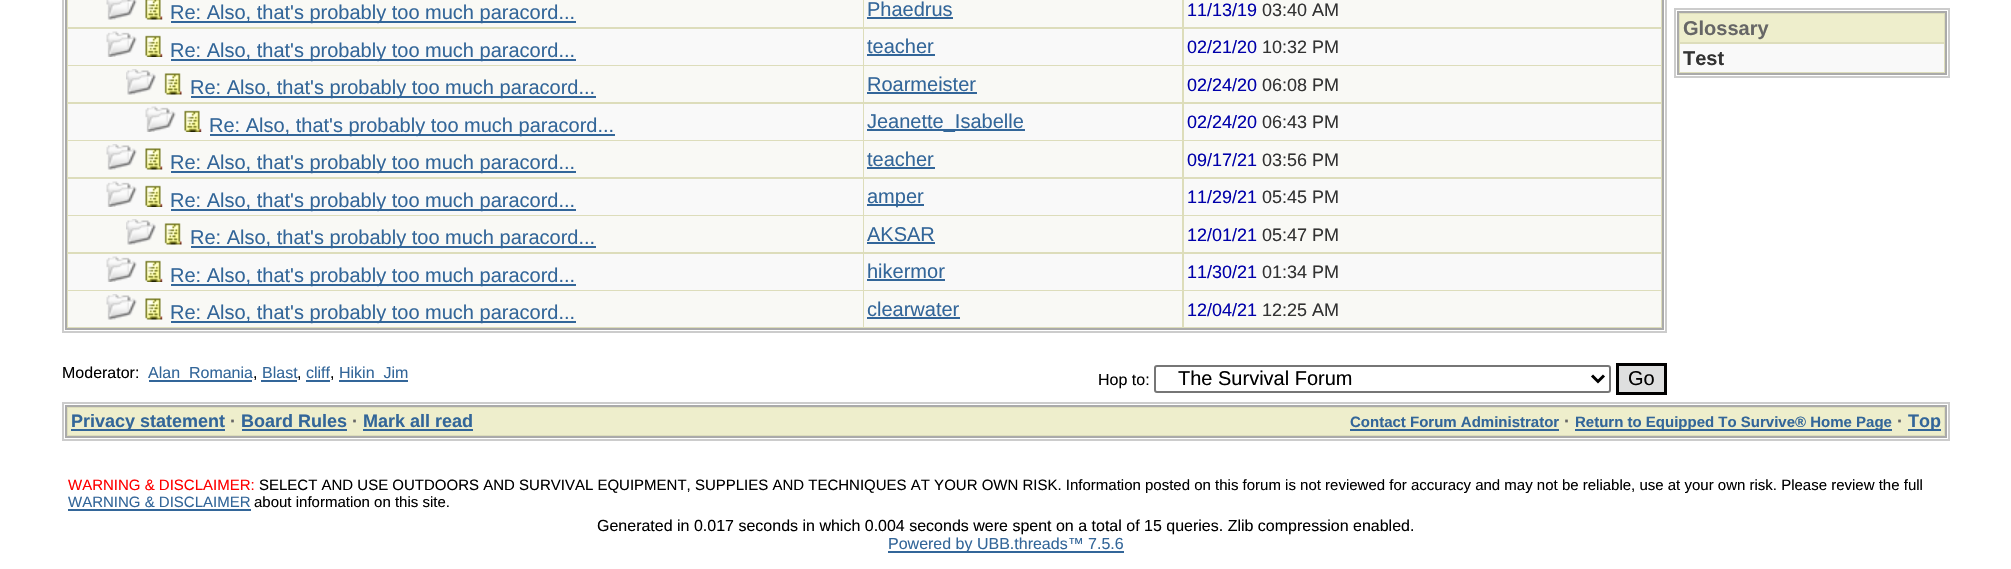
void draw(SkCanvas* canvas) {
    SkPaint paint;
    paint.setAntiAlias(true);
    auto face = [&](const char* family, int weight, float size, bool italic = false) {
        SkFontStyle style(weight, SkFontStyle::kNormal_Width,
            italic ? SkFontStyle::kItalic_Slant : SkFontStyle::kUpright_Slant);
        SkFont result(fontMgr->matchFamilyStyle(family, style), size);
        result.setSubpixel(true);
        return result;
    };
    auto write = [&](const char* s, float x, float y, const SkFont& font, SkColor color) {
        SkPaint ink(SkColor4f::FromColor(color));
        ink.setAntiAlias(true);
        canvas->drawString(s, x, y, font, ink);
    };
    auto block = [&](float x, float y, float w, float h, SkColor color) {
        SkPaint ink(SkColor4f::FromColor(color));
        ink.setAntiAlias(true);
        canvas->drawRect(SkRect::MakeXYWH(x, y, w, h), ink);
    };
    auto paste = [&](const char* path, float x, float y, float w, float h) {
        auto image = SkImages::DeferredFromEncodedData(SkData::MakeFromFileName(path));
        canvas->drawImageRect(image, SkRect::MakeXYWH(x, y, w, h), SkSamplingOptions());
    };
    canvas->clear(SK_ColorWHITE);
    paint.setStyle(SkPaint::kStroke_Style);
    paint.setStrokeWidth(2);
    paint.setColor(SkColorSetRGB(204, 204, 204));
    canvas->drawRect(SkRect::MakeXYWH(63, -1, 1603, 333), paint);
    paint.setStyle(SkPaint::kFill_Style);
    paint.setColor(SkColorSetRGB(221, 221, 187));
    canvas->drawRect(SkRect::MakeXYWH(66, -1, 1597, 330), paint);
    paint.setStyle(SkPaint::kStroke_Style);
    paint.setColor(SkColorSetRGB(170, 170, 170));
    canvas->drawRect(SkRect::MakeXYWH(66, -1, 1597, 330), paint);
    block(68, 0, 795, 27, SkColorSetRGB(249, 249, 245));
    paste("pic1.png", 106, 0, 31, 20);
    paste("pic2.png", 145, 0, 18, 20);
    block(171, 21, 405, 2, SkColorSetRGB(51, 102, 153));
    auto kFont1 = face("Liberation Sans", 400, 20);
    write("Re: Also, that's probably too much paracord...", 170, 19, kFont1, SkColorSetRGB(51, 102, 153));
    block(864, 0, 318, 27, SkColorSetRGB(249, 249, 245));
    write("Phaedrus", 867, 16, kFont1, SkColorSetRGB(51, 102, 153));
    block(867, 17, 86, 2, SkColorSetRGB(51, 102, 153));
    block(1184, 0, 477, 27, SkColorSetRGB(249, 249, 245));
    auto kFont2 = face("Liberation Sans", 400, 18);
    write("11/13/19", 1187, 16, kFont2, SkColorSetRGB(0, 0, 170));
    write("03:40 AM", 1262, 16, kFont2, SkColorSetRGB(51, 51, 51));
    block(68, 29, 795, 36, SkColorSetRGB(249, 249, 249));
    paste("pic3.png", 106, 31, 31, 26);
    paste("pic4.png", 145, 35, 18, 22);
    block(171, 59, 405, 2, SkColorSetRGB(51, 102, 153));
    write("Re: Also, that's probably too much paracord...", 170, 57, kFont1, SkColorSetRGB(51, 102, 153));
    block(864, 29, 318, 36, SkColorSetRGB(249, 249, 249));
    write("teacher", 867, 53, kFont1, SkColorSetRGB(51, 102, 153));
    block(867, 54, 68, 2, SkColorSetRGB(51, 102, 153));
    block(1184, 29, 477, 36, SkColorSetRGB(249, 249, 249));
    write("02/21/20", 1187, 53, kFont2, SkColorSetRGB(0, 0, 170));
    write("10:32 PM", 1262, 53, kFont2, SkColorSetRGB(51, 51, 51));
    block(68, 66, 795, 36, SkColorSetRGB(249, 249, 245));
    paste("pic5.png", 126, 69, 30, 26);
    paste("pic6.png", 164, 73, 18, 22);
    block(191, 96, 405, 2, SkColorSetRGB(51, 102, 153));
    write("Re: Also, that's probably too much paracord...", 190, 94, kFont1, SkColorSetRGB(51, 102, 153));
    block(864, 66, 318, 36, SkColorSetRGB(249, 249, 245));
    write("Roarmeister", 867, 91, kFont1, SkColorSetRGB(51, 102, 153));
    block(867, 92, 110, 2, SkColorSetRGB(51, 102, 153));
    block(1184, 66, 477, 36, SkColorSetRGB(249, 249, 245));
    write("02/24/20", 1187, 91, kFont2, SkColorSetRGB(0, 0, 170));
    write("06:08 PM", 1262, 91, kFont2, SkColorSetRGB(51, 51, 51));
    block(68, 104, 795, 36, SkColorSetRGB(249, 249, 249));
    paste("pic3.png", 145, 106, 31, 26);
    paste("pic4.png", 184, 110, 18, 22);
    block(210, 134, 405, 2, SkColorSetRGB(51, 102, 153));
    write("Re: Also, that's probably too much paracord...", 209, 132, kFont1, SkColorSetRGB(51, 102, 153));
    block(864, 104, 318, 36, SkColorSetRGB(249, 249, 249));
    block(867, 129, 158, 2, SkColorSetRGB(51, 102, 153));
    write("Jeanette_Isabelle", 867, 128, kFont1, SkColorSetRGB(51, 102, 153));
    block(1184, 104, 477, 36, SkColorSetRGB(249, 249, 249));
    write("02/24/20", 1187, 128, kFont2, SkColorSetRGB(0, 0, 170));
    write("06:43 PM", 1262, 128, kFont2, SkColorSetRGB(51, 51, 51));
    block(68, 141, 795, 36, SkColorSetRGB(249, 249, 245));
    paste("pic7.png", 106, 144, 31, 26);
    paste("pic8.png", 145, 148, 18, 22);
    block(171, 171, 405, 2, SkColorSetRGB(51, 102, 153));
    write("Re: Also, that's probably too much paracord...", 170, 169, kFont1, SkColorSetRGB(51, 102, 153));
    block(864, 141, 318, 36, SkColorSetRGB(249, 249, 245));
    write("teacher", 867, 166, kFont1, SkColorSetRGB(51, 102, 153));
    block(867, 167, 68, 2, SkColorSetRGB(51, 102, 153));
    block(1184, 141, 477, 36, SkColorSetRGB(249, 249, 245));
    write("09/17/21", 1187, 166, kFont2, SkColorSetRGB(0, 0, 170));
    write("03:56 PM", 1262, 166, kFont2, SkColorSetRGB(51, 51, 51));
    block(68, 179, 795, 36, SkColorSetRGB(249, 249, 249));
    paste("pic3.png", 106, 181, 31, 26);
    paste("pic4.png", 145, 185, 18, 22);
    block(171, 209, 405, 2, SkColorSetRGB(51, 102, 153));
    write("Re: Also, that's probably too much paracord...", 170, 207, kFont1, SkColorSetRGB(51, 102, 153));
    block(864, 179, 318, 36, SkColorSetRGB(249, 249, 249));
    block(867, 204, 57, 2, SkColorSetRGB(51, 102, 153));
    write("amper", 867, 203, kFont1, SkColorSetRGB(51, 102, 153));
    block(1184, 179, 477, 36, SkColorSetRGB(249, 249, 249));
    write("11/29/21", 1187, 203, kFont2, SkColorSetRGB(0, 0, 170));
    write("05:45 PM", 1262, 203, kFont2, SkColorSetRGB(51, 51, 51));
    block(68, 216, 795, 36, SkColorSetRGB(249, 249, 245));
    paste("pic5.png", 126, 219, 30, 26);
    paste("pic6.png", 164, 223, 18, 22);
    block(191, 246, 405, 2, SkColorSetRGB(51, 102, 153));
    write("Re: Also, that's probably too much paracord...", 190, 244, kFont1, SkColorSetRGB(51, 102, 153));
    block(864, 216, 318, 36, SkColorSetRGB(249, 249, 245));
    write("AKSAR", 867, 241, kFont1, SkColorSetRGB(51, 102, 153));
    block(867, 242, 68, 2, SkColorSetRGB(51, 102, 153));
    block(1184, 216, 477, 36, SkColorSetRGB(249, 249, 245));
    write("12/01/21", 1187, 241, kFont2, SkColorSetRGB(0, 0, 170));
    write("05:47 PM", 1262, 241, kFont2, SkColorSetRGB(51, 51, 51));
    block(68, 254, 795, 36, SkColorSetRGB(249, 249, 249));
    paste("pic3.png", 106, 256, 31, 26);
    paste("pic4.png", 145, 260, 18, 22);
    block(171, 284, 405, 2, SkColorSetRGB(51, 102, 153));
    write("Re: Also, that's probably too much paracord...", 170, 282, kFont1, SkColorSetRGB(51, 102, 153));
    block(864, 254, 318, 36, SkColorSetRGB(249, 249, 249));
    write("hikermor", 867, 278, kFont1, SkColorSetRGB(51, 102, 153));
    block(867, 279, 78, 2, SkColorSetRGB(51, 102, 153));
    block(1184, 254, 477, 36, SkColorSetRGB(249, 249, 249));
    write("11/30/21", 1187, 278, kFont2, SkColorSetRGB(0, 0, 170));
    write("01:34 PM", 1262, 278, kFont2, SkColorSetRGB(51, 51, 51));
    block(68, 291, 795, 36, SkColorSetRGB(249, 249, 245));
    paste("pic7.png", 106, 294, 31, 26);
    paste("pic8.png", 145, 298, 18, 22);
    block(171, 321, 405, 2, SkColorSetRGB(51, 102, 153));
    write("Re: Also, that's probably too much paracord...", 170, 319, kFont1, SkColorSetRGB(51, 102, 153));
    block(864, 291, 318, 36, SkColorSetRGB(249, 249, 245));
    write("clearwater", 867, 316, kFont1, SkColorSetRGB(51, 102, 153));
    block(867, 317, 93, 2, SkColorSetRGB(51, 102, 153));
    block(1184, 291, 477, 36, SkColorSetRGB(249, 249, 245));
    write("12/04/21", 1187, 316, kFont2, SkColorSetRGB(0, 0, 170));
    write("12:25 AM", 1262, 316, kFont2, SkColorSetRGB(51, 51, 51));
    auto kFont3 = face("Liberation Sans", 400, 16);
    write("Moderator:", 62, 378, kFont3, SK_ColorBLACK);
    block(149, 380, 103, 2, SkColorSetRGB(51, 102, 153));
    write("Alan_Romania", 148, 378, kFont3, SkColorSetRGB(51, 102, 153));
    write(",", 253, 378, kFont3, SK_ColorBLACK);
    write("Blast", 262, 378, kFont3, SkColorSetRGB(51, 102, 153));
    block(261, 380, 36, 2, SkColorSetRGB(51, 102, 153));
    write(",", 297, 378, kFont3, SK_ColorBLACK);
    write("cliff", 306, 378, kFont3, SkColorSetRGB(51, 102, 153));
    block(306, 380, 24, 2, SkColorSetRGB(51, 102, 153));
    write(",", 330, 378, kFont3, SK_ColorBLACK);
    block(339, 380, 69, 2, SkColorSetRGB(51, 102, 153));
    write("Hikin_Jim", 339, 378, kFont3, SkColorSetRGB(51, 102, 153));
    write("Hop to:", 1098, 385, kFont3, SK_ColorBLACK);
    paint.setColor(SkColorSetRGB(118, 118, 118));
    canvas->drawRoundRect(SkRect::MakeXYWH(1155, 366, 455, 26), 2, 2, paint);
    paint.setStrokeWidth(3);
    paint.setColor(SK_ColorBLACK);
    canvas->drawPath(SkPathBuilder().moveTo(1592, 375.5f).lineTo(1598, 381.5f).lineTo(1604, 375.5f).detach(), paint);
    write("The Survival Forum", 1178, 385, kFont1, SK_ColorBLACK);
    paint.setStyle(SkPaint::kFill_Style);
    paint.setColor(SkColorSetRGB(222, 223, 223));
    canvas->drawRect(SkRect::MakeXYWH(1617.5f, 364.5f, 48, 29), paint);
    paint.setStyle(SkPaint::kStroke_Style);
    paint.setColor(SK_ColorBLACK);
    canvas->drawRect(SkRect::MakeXYWH(1617.5f, 364.5f, 48, 29), paint);
    write("Go", 1628, 385, kFont1, SK_ColorBLACK);
    paint.setStrokeWidth(2);
    paint.setColor(SkColorSetRGB(204, 204, 204));
    canvas->drawRect(SkRect::MakeXYWH(1675, 9, 274, 68), paint);
    paint.setStyle(SkPaint::kFill_Style);
    paint.setColor(SkColorSetRGB(221, 221, 187));
    canvas->drawRect(SkRect::MakeXYWH(1678, 12, 268, 62), paint);
    paint.setStyle(SkPaint::kStroke_Style);
    paint.setColor(SkColorSetRGB(170, 170, 170));
    canvas->drawRect(SkRect::MakeXYWH(1678, 12, 268, 62), paint);
    block(1680, 14, 264, 28, SkColorSetRGB(238, 238, 204));
    auto kFont4 = face("Liberation Sans", 700, 20);
    write("Glossary", 1683, 35, kFont4, SkColorSetRGB(102, 102, 102));
    block(1680, 44, 264, 28, SkColorSetRGB(249, 249, 249));
    write("Test", 1683, 65, kFont4, SkColorSetRGB(51, 51, 51));
    paint.setColor(SkColorSetRGB(204, 204, 204));
    canvas->drawRect(SkRect::MakeXYWH(63, 403, 1886, 37), paint);
    paint.setStyle(SkPaint::kFill_Style);
    paint.setColor(SkColorSetRGB(221, 221, 187));
    canvas->drawRect(SkRect::MakeXYWH(66, 406, 1880, 31), paint);
    paint.setStyle(SkPaint::kStroke_Style);
    paint.setColor(SkColorSetRGB(170, 170, 170));
    canvas->drawRect(SkRect::MakeXYWH(66, 406, 1880, 31), paint);
    block(68, 408, 1876, 27, SkColorSetRGB(238, 238, 204));
    block(71, 429, 154, 2, SkColorSetRGB(51, 102, 153));
    auto kFont5 = face("Liberation Sans", 700, 18);
    write("Privacy statement", 71, 427, kFont5, SkColorSetRGB(51, 102, 153));
    write("·", 230, 427, kFont5, SkColorSetRGB(102, 102, 102));
    write("Board Rules", 241, 427, kFont5, SkColorSetRGB(51, 102, 153));
    block(242, 429, 105, 2, SkColorSetRGB(51, 102, 153));
    write("·", 352, 427, kFont5, SkColorSetRGB(102, 102, 102));
    write("Mark all read", 363, 427, kFont5, SkColorSetRGB(51, 102, 153));
    block(363, 429, 110, 2, SkColorSetRGB(51, 102, 153));
    auto kFont6 = face("Liberation Sans", 700, 15);
    write("Contact Forum Administrator", 1350, 427, kFont6, SkColorSetRGB(51, 102, 153));
    block(1350, 429, 209, 2, SkColorSetRGB(51, 102, 153));
    write("·", 1564, 427, kFont5, SkColorSetRGB(102, 102, 102));
    block(1575, 429, 317, 2, SkColorSetRGB(51, 102, 153));
    write("Return to Equipped To Survive® Home Page", 1575, 427, kFont6, SkColorSetRGB(51, 102, 153));
    write("·", 1897, 427, kFont5, SkColorSetRGB(102, 102, 102));
    block(1908, 429, 33, 2, SkColorSetRGB(51, 102, 153));
    write("Top", 1908, 427, kFont5, SkColorSetRGB(51, 102, 153));
    auto kFont7 = face("Liberation Sans", 400, 15);
    write("WARNING & DISCLAIMER:", 68, 490, kFont7, SkColorSetRGB(255, 0, 0));
    write("SELECT AND USE OUTDOORS AND SURVIVAL EQUIPMENT, SUPPLIES AND TECHNIQUES AT YOUR OWN RISK. Information posted on this forum is not reviewed for accuracy and may not be reliable, use at your own risk. Please review the full", 259, 490, kFont7, SK_ColorBLACK);
    write("WARNING & DISCLAIMER", 68, 507, kFont7, SkColorSetRGB(51, 102, 153));
    block(68, 509, 183, 2, SkColorSetRGB(51, 102, 153));
    write("about information on this site.", 254, 507, kFont7, SK_ColorBLACK);
    write("Generated in 0.017 seconds in which 0.004 seconds were spent on a total of 15 queries. Zlib compression enabled.", 597, 531, kFont3, SK_ColorBLACK);
    block(888, 551, 236, 2, SkColorSetRGB(51, 102, 153));
    write("Powered by UBB.threads™ 7.5.6", 888, 549, kFont3, SkColorSetRGB(51, 102, 153));
}
